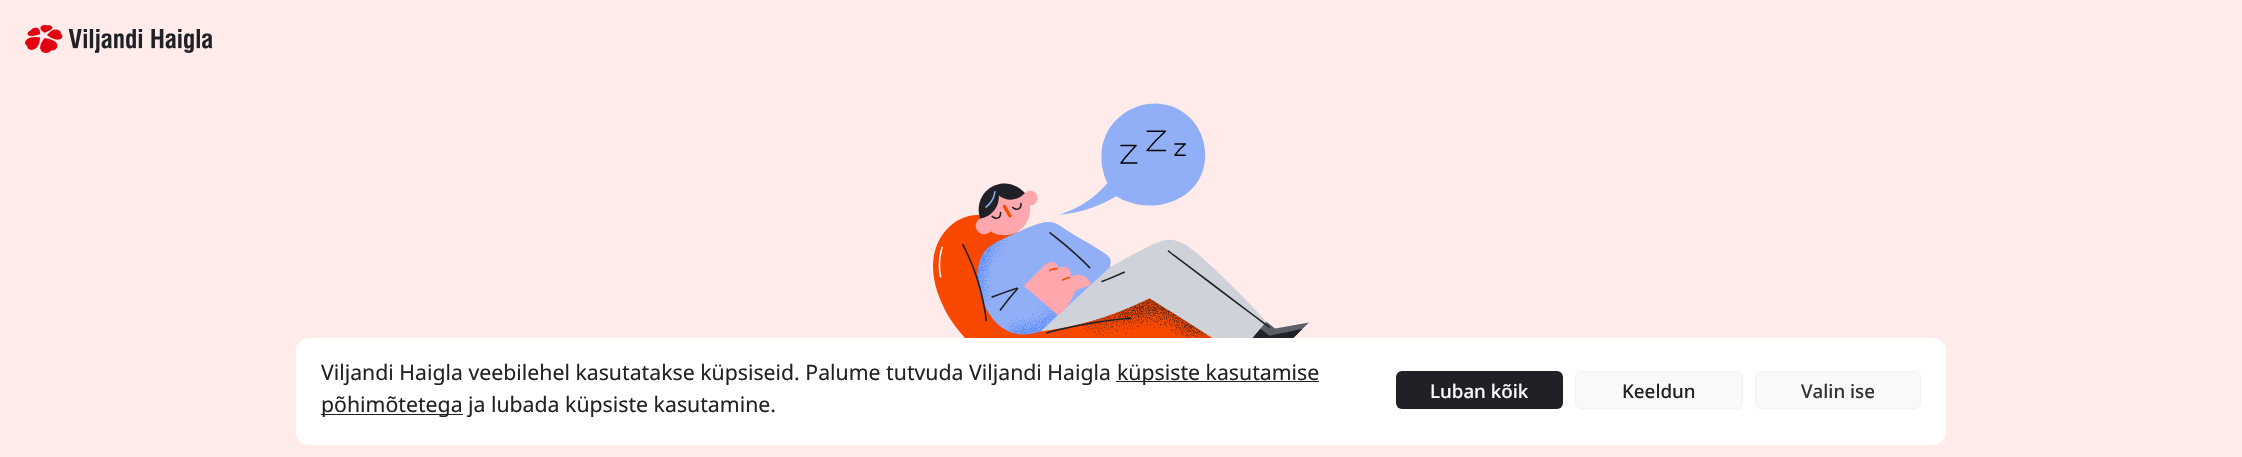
void draw(SkCanvas* canvas) {
    SkPaint paint;
    paint.setAntiAlias(true);
    auto face = [&](const char* family, int weight, float size, bool italic = false) {
        SkFontStyle style(weight, SkFontStyle::kNormal_Width,
            italic ? SkFontStyle::kItalic_Slant : SkFontStyle::kUpright_Slant);
        SkFont result(fontMgr->matchFamilyStyle(family, style), size);
        result.setSubpixel(true);
        return result;
    };
    auto write = [&](const char* s, float x, float y, const SkFont& font, SkColor color) {
        SkPaint ink(SkColor4f::FromColor(color));
        ink.setAntiAlias(true);
        canvas->drawString(s, x, y, font, ink);
    };
    auto block = [&](float x, float y, float w, float h, SkColor color) {
        SkPaint ink(SkColor4f::FromColor(color));
        ink.setAntiAlias(true);
        canvas->drawRect(SkRect::MakeXYWH(x, y, w, h), ink);
    };
    auto card = [&](float x, float y, float w, float h, float radius, SkColor color) {
        SkPaint ink(SkColor4f::FromColor(color));
        ink.setAntiAlias(true);
        canvas->drawRoundRect(SkRect::MakeXYWH(x, y, w, h), radius, radius, ink);
    };
    auto paste = [&](const char* path, float x, float y, float w, float h) {
        auto image = SkImages::DeferredFromEncodedData(SkData::MakeFromFileName(path));
        canvas->drawImageRect(image, SkRect::MakeXYWH(x, y, w, h), SkSamplingOptions());
    };
    canvas->clear(SkColorSetRGB(255, 235, 234));
    paste("pic1.png", 25, 25, 188, 28);
    paste("pic2.png", 933, 103, 376, 235);
    card(296, 338, 1650, 107, 13, SK_ColorWHITE);
    auto kFont1 = face("Noto Sans", 400, 21.25f);
    write("Viljandi Haigla veebilehel kasutatakse küpsiseid. Palume tutvuda Viljandi Haigla", 321, 380, kFont1, SkColorSetRGB(34, 34, 34));
    block(1116, 381, 203, 1, SkColorSetRGB(32, 33, 39));
    write("küpsiste kasutamise", 1117, 380, kFont1, SkColorSetRGB(34, 34, 34));
    block(321, 414, 142, 1, SkColorSetRGB(32, 33, 39));
    write("põhimõtetega", 321, 412, kFont1, SkColorSetRGB(34, 34, 34));
    write("ja lubada küpsiste kasutamine.", 468, 412, kFont1, SkColorSetRGB(34, 34, 34));
    card(1396, 371, 167, 38, 6, SkColorSetRGB(32, 33, 39));
    auto kFont2 = face("Noto Sans", 500, 18.75f);
    write("Luban kõik", 1430, 398, kFont2, SK_ColorWHITE);
    paint.setColor(SkColorSetRGB(249, 249, 249));
    canvas->drawRoundRect(SkRect::MakeXYWH(1575.5f, 371.5f, 167, 37), 5.5f, 5.5f, paint);
    paint.setStyle(SkPaint::kStroke_Style);
    paint.setStrokeWidth(1);
    paint.setColor(SkColorSetRGB(242, 242, 242));
    canvas->drawRoundRect(SkRect::MakeXYWH(1575.5f, 371.5f, 167, 37), 5.5f, 5.5f, paint);
    write("Keeldun", 1622, 398, kFont2, SkColorSetRGB(34, 34, 34));
    paint.setStyle(SkPaint::kFill_Style);
    paint.setColor(SkColorSetRGB(249, 249, 249));
    canvas->drawRoundRect(SkRect::MakeXYWH(1755.5f, 371.5f, 165, 37), 5.5f, 5.5f, paint);
    paint.setStyle(SkPaint::kStroke_Style);
    paint.setColor(SkColorSetRGB(242, 242, 242));
    canvas->drawRoundRect(SkRect::MakeXYWH(1755.5f, 371.5f, 165, 37), 5.5f, 5.5f, paint);
    write("Valin ise", 1801, 398, kFont2, SkColorSetRGB(51, 51, 51));
}
